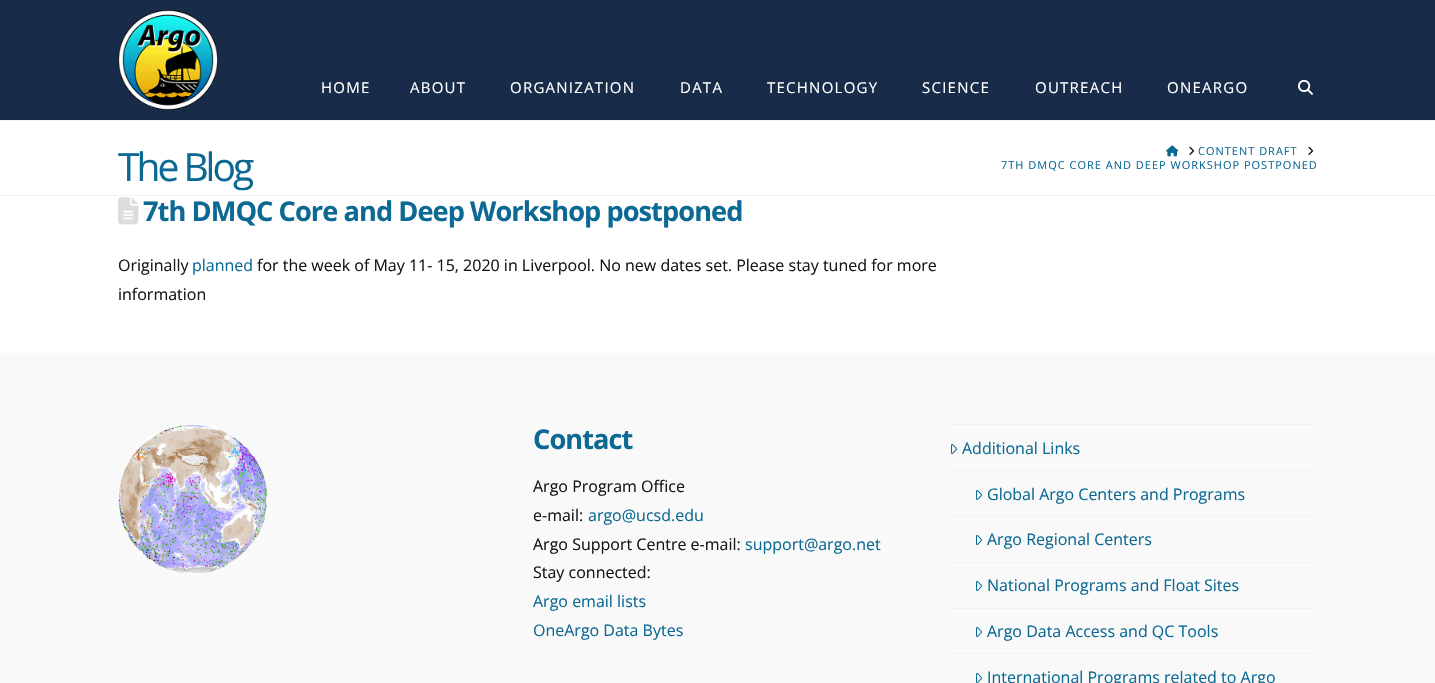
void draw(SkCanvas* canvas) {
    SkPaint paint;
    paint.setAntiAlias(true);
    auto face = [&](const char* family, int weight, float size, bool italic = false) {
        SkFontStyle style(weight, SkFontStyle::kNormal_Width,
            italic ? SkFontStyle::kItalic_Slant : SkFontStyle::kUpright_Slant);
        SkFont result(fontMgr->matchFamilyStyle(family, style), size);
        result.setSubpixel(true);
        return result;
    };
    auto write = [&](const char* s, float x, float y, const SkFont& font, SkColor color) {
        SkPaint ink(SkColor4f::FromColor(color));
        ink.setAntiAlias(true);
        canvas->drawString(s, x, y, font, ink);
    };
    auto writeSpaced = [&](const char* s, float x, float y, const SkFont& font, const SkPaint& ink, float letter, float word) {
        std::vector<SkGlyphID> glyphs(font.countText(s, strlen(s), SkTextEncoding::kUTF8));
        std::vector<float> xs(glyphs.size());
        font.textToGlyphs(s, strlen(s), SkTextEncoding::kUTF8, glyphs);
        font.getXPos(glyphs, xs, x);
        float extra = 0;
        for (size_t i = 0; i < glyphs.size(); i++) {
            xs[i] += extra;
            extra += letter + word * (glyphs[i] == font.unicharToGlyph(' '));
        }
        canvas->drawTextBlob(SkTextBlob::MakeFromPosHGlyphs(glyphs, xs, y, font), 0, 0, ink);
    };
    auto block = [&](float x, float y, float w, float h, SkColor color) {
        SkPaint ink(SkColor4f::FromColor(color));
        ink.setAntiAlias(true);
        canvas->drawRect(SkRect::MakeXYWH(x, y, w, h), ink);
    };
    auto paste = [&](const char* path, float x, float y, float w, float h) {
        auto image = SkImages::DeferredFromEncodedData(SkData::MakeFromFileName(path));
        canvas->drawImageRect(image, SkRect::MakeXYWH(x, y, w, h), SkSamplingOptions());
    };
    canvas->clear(SK_ColorWHITE);
    block(0, 0, 1435, 120, SkColorSetRGB(24, 43, 73));
    paste("pic1.png", 118, 9, 100, 102);
    auto kFont1 = face("Open Sans", 400, 15);
    paint.setColor(SK_ColorWHITE);
    writeSpaced("HOME", 321, 93, kFont1, paint, 1.25f, 0);
    writeSpaced("ABOUT", 410, 93, kFont1, paint, 1.25f, 0);
    writeSpaced("ORGANIZATION", 510, 93, kFont1, paint, 1.25f, 0);
    writeSpaced("DATA", 680, 93, kFont1, paint, 1.25f, 0);
    writeSpaced("TECHNOLOGY", 767, 93, kFont1, paint, 1.25f, 0);
    writeSpaced("SCIENCE", 922, 93, kFont1, paint, 1.25f, 0);
    writeSpaced("OUTREACH", 1035, 93, kFont1, paint, 1.25f, 0);
    writeSpaced("ONEARGO", 1167, 93, kFont1, paint, 1.25f, 0);
    paste("pic2.png", 1298, 79, 15, 16);
    block(0, 120, 1435, 1, SkColorSetRGB(242, 242, 242));
    block(0, 195, 1435, 1, SkColorSetRGB(242, 242, 242));
    auto kFont2 = face("Open Sans", 400, 39);
    paint.setColor(SkColorSetRGB(12, 105, 147));
    writeSpaced("The Blog", 118, 181, kFont2, paint, -3, 0);
    paste("pic3.png", 1166, 145, 13, 12);
    paste("pic4.png", 1189, 146, 6, 9);
    auto kFont3 = face("Open Sans", 400, 11);
    writeSpaced("CONTENT DRAFT", 1198, 155, kFont3, paint, 1, 0);
    paste("pic4.png", 1308, 146, 6, 9);
    writeSpaced("7TH DMQC CORE AND DEEP WORKSHOP POSTPONED", 1001, 169, kFont3, paint, 1, 0);
    paste("pic5.png", 118, 197, 21, 28);
    auto kFont4 = face("Open Sans", 700, 27.2f);
    writeSpaced("7th DMQC Core and Deep Workshop postponed", 143, 221, kFont4, paint, -0.95f, 0);
    auto kFont5 = face("Open Sans", 400, 16);
    write("Originally", 118, 271, kFont5, SkColorSetRGB(20, 23, 26));
    write("planned", 192, 271, kFont5, SkColorSetRGB(12, 105, 147));
    write("for the week of May 11- 15, 2020 in Liverpool. No new dates set. Please stay tuned for more", 257, 271, kFont5, SkColorSetRGB(20, 23, 26));
    write("information", 118, 300, kFont5, SkColorSetRGB(20, 23, 26));
    block(0, 353, 1435, 330, SkColorSetRGB(249, 249, 249));
    paste("pic6.png", 118, 425, 149, 148);
    writeSpaced("Contact", 533, 449, kFont4, paint, -0.95f, 0);
    write("Argo Program Office", 533, 492, kFont5, SkColorSetRGB(20, 23, 26));
    write("e-mail:", 533, 521, kFont5, SkColorSetRGB(20, 23, 26));
    write("argo@ucsd.edu", 588, 521, kFont5, SkColorSetRGB(12, 105, 147));
    write("Argo Support Centre e-mail:", 533, 550, kFont5, SkColorSetRGB(20, 23, 26));
    write("support@argo.net", 745, 550, kFont5, SkColorSetRGB(12, 105, 147));
    write("Stay connected:", 533, 578, kFont5, SkColorSetRGB(20, 23, 26));
    write("Argo email lists", 533, 607, kFont5, SkColorSetRGB(12, 105, 147));
    write("OneArgo Data Bytes", 533, 636, kFont5, SkColorSetRGB(12, 105, 147));
    block(949, 424, 368, 1, SkColorSetRGB(242, 242, 242));
    paste("pic7.png", 951, 444, 6, 10);
    write("Additional Links", 962, 454, kFont5, SkColorSetRGB(12, 105, 147));
    block(949, 470, 368, 1, SkColorSetRGB(242, 242, 242));
    paste("pic7.png", 976, 490, 6, 10);
    write("Global Argo Centers and Programs", 987, 500, kFont5, SkColorSetRGB(12, 105, 147));
    block(949, 516, 368, 1, SkColorSetRGB(242, 242, 242));
    paste("pic7.png", 976, 535, 6, 10);
    write("Argo Regional Centers", 987, 545, kFont5, SkColorSetRGB(12, 105, 147));
    block(949, 562, 368, 1, SkColorSetRGB(242, 242, 242));
    paste("pic7.png", 976, 581, 6, 10);
    write("National Programs and Float Sites", 987, 591, kFont5, SkColorSetRGB(12, 105, 147));
    block(949, 608, 368, 1, SkColorSetRGB(242, 242, 242));
    paste("pic7.png", 976, 627, 6, 10);
    write("Argo Data Access and QC Tools", 987, 637, kFont5, SkColorSetRGB(12, 105, 147));
    block(949, 653, 368, 1, SkColorSetRGB(242, 242, 242));
    paste("pic7.png", 976, 673, 6, 10);
    write("International Programs related to Argo", 987, 683, kFont5, SkColorSetRGB(12, 105, 147));
}
